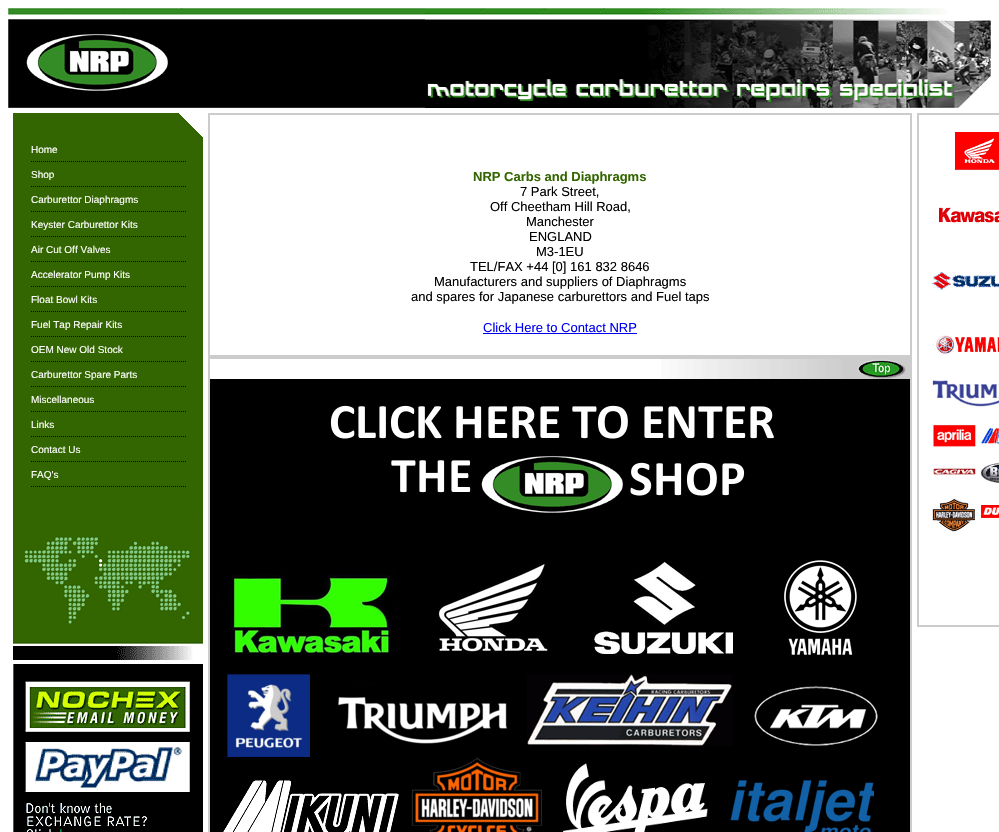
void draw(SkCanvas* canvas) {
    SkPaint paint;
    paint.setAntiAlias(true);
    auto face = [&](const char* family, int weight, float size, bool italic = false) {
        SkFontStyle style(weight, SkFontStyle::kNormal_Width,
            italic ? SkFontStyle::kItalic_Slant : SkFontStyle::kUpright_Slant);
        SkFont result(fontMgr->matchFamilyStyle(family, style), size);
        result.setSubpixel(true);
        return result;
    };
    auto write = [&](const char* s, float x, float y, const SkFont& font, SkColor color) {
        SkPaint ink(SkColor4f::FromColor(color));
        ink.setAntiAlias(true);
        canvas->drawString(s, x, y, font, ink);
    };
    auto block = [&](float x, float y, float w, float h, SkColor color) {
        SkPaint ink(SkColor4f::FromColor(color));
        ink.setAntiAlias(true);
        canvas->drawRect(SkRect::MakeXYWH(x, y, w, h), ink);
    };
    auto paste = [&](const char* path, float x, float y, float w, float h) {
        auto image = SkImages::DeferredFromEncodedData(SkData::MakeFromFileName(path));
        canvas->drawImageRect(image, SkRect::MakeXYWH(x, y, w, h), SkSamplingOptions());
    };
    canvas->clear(SK_ColorWHITE);
    paste("pic1.png", 8, 8, 175, 100);
    paste("pic2.png", 183, 8, 242, 100);
    paste("pic3.png", 425, 8, 566, 100);
    block(13, 113, 190, 403, SkColorSetRGB(51, 102, 0));
    paste("pic4.png", 179, 113, 24, 24);
    paint.setStyle(SkPaint::kStroke_Style);
    paint.setStrokeWidth(1);
    paint.setColor(SK_ColorBLACK);
    paint.setPathEffect(SkDashPathEffect::Make({{1, 1}}, 0));
    canvas->drawPath(SkPathBuilder().moveTo(31, 161.5f).lineTo(186, 161.5f).detach(), paint);
    paint.setPathEffect(nullptr);
    auto kFont1 = face("Liberation Sans", 400, 10);
    write("Home", 31, 153, kFont1, SK_ColorWHITE);
    paint.setPathEffect(SkDashPathEffect::Make({{1, 1}}, 0));
    canvas->drawPath(SkPathBuilder().moveTo(31, 186.5f).lineTo(186, 186.5f).detach(), paint);
    paint.setPathEffect(nullptr);
    write("Shop", 31, 178, kFont1, SK_ColorWHITE);
    paint.setPathEffect(SkDashPathEffect::Make({{1, 1}}, 0));
    canvas->drawPath(SkPathBuilder().moveTo(31, 211.5f).lineTo(186, 211.5f).detach(), paint);
    paint.setPathEffect(nullptr);
    write("Carburettor Diaphragms", 31, 203, kFont1, SK_ColorWHITE);
    paint.setPathEffect(SkDashPathEffect::Make({{1, 1}}, 0));
    canvas->drawPath(SkPathBuilder().moveTo(31, 236.5f).lineTo(186, 236.5f).detach(), paint);
    paint.setPathEffect(nullptr);
    write("Keyster Carburettor Kits", 31, 228, kFont1, SK_ColorWHITE);
    paint.setPathEffect(SkDashPathEffect::Make({{1, 1}}, 0));
    canvas->drawPath(SkPathBuilder().moveTo(31, 261.5f).lineTo(186, 261.5f).detach(), paint);
    paint.setPathEffect(nullptr);
    write("Air Cut Off Valves", 31, 253, kFont1, SK_ColorWHITE);
    paint.setPathEffect(SkDashPathEffect::Make({{1, 1}}, 0));
    canvas->drawPath(SkPathBuilder().moveTo(31, 286.5f).lineTo(186, 286.5f).detach(), paint);
    paint.setPathEffect(nullptr);
    write("Accelerator Pump Kits", 31, 278, kFont1, SK_ColorWHITE);
    paint.setPathEffect(SkDashPathEffect::Make({{1, 1}}, 0));
    canvas->drawPath(SkPathBuilder().moveTo(31, 311.5f).lineTo(186, 311.5f).detach(), paint);
    paint.setPathEffect(nullptr);
    write("Float Bowl Kits", 31, 303, kFont1, SK_ColorWHITE);
    paint.setPathEffect(SkDashPathEffect::Make({{1, 1}}, 0));
    canvas->drawPath(SkPathBuilder().moveTo(31, 336.5f).lineTo(186, 336.5f).detach(), paint);
    paint.setPathEffect(nullptr);
    write("Fuel Tap Repair Kits", 31, 328, kFont1, SK_ColorWHITE);
    paint.setPathEffect(SkDashPathEffect::Make({{1, 1}}, 0));
    canvas->drawPath(SkPathBuilder().moveTo(31, 361.5f).lineTo(186, 361.5f).detach(), paint);
    paint.setPathEffect(nullptr);
    write("OEM New Old Stock", 31, 353, kFont1, SK_ColorWHITE);
    paint.setPathEffect(SkDashPathEffect::Make({{1, 1}}, 0));
    canvas->drawPath(SkPathBuilder().moveTo(31, 386.5f).lineTo(186, 386.5f).detach(), paint);
    paint.setPathEffect(nullptr);
    write("Carburettor Spare Parts", 31, 378, kFont1, SK_ColorWHITE);
    paint.setPathEffect(SkDashPathEffect::Make({{1, 1}}, 0));
    canvas->drawPath(SkPathBuilder().moveTo(31, 411.5f).lineTo(186, 411.5f).detach(), paint);
    paint.setPathEffect(nullptr);
    write("Miscellaneous", 31, 403, kFont1, SK_ColorWHITE);
    paint.setPathEffect(SkDashPathEffect::Make({{1, 1}}, 0));
    canvas->drawPath(SkPathBuilder().moveTo(31, 436.5f).lineTo(186, 436.5f).detach(), paint);
    paint.setPathEffect(nullptr);
    write("Links", 31, 428, kFont1, SK_ColorWHITE);
    paint.setPathEffect(SkDashPathEffect::Make({{1, 1}}, 0));
    canvas->drawPath(SkPathBuilder().moveTo(31, 461.5f).lineTo(186, 461.5f).detach(), paint);
    paint.setPathEffect(nullptr);
    write("Contact Us", 31, 453, kFont1, SK_ColorWHITE);
    paint.setPathEffect(SkDashPathEffect::Make({{1, 1}}, 0));
    canvas->drawPath(SkPathBuilder().moveTo(31, 486.5f).lineTo(186, 486.5f).detach(), paint);
    paint.setPathEffect(nullptr);
    write("FAQ's", 31, 478, kFont1, SK_ColorWHITE);
    paste("pic5.png", 13, 516, 190, 145);
    paste("pic6.png", 13, 664, 190, 168);
    paint.setStrokeWidth(2);
    paint.setColor(SkColorSetRGB(204, 204, 204));
    canvas->drawRect(SkRect::MakeXYWH(209, 114, 702, 242), paint);
    auto kFont2 = face("Liberation Sans", 700, 13);
    write("NRP Carbs and Diaphragms", 473, 181, kFont2, SkColorSetRGB(51, 102, 0));
    auto kFont3 = face("Liberation Sans", 400, 13);
    write("7 Park Street,", 520, 196, kFont3, SK_ColorBLACK);
    write("Off Cheetham Hill Road,", 490, 211, kFont3, SK_ColorBLACK);
    write("Manchester", 526, 226, kFont3, SK_ColorBLACK);
    write("ENGLAND", 529, 241, kFont3, SK_ColorBLACK);
    write("M3-1EU", 536, 256, kFont3, SK_ColorBLACK);
    write("TEL/FAX +44 [0] 161 832 8646", 470, 271, kFont3, SK_ColorBLACK);
    write("Manufacturers and suppliers of Diaphragms", 434, 286, kFont3, SK_ColorBLACK);
    write("and spares for Japanese carburettors and Fuel taps", 411, 301, kFont3, SK_ColorBLACK);
    write("Click Here to Contact NRP", 483, 332, kFont3, SkColorSetRGB(0, 0, 238));
    block(483, 333, 154, 1, SkColorSetRGB(0, 0, 238));
    canvas->drawRect(SkRect::MakeXYWH(209, 358, 702, 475), paint);
    paste("pic7.png", 661, 359, 249, 20);
    paste("pic8.png", 210, 379, 700, 453);
    canvas->drawRect(SkRect::MakeXYWH(918, 114, 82, 512), paint);
    paste("pic9.png", 931, 132, 68, 401);
}
